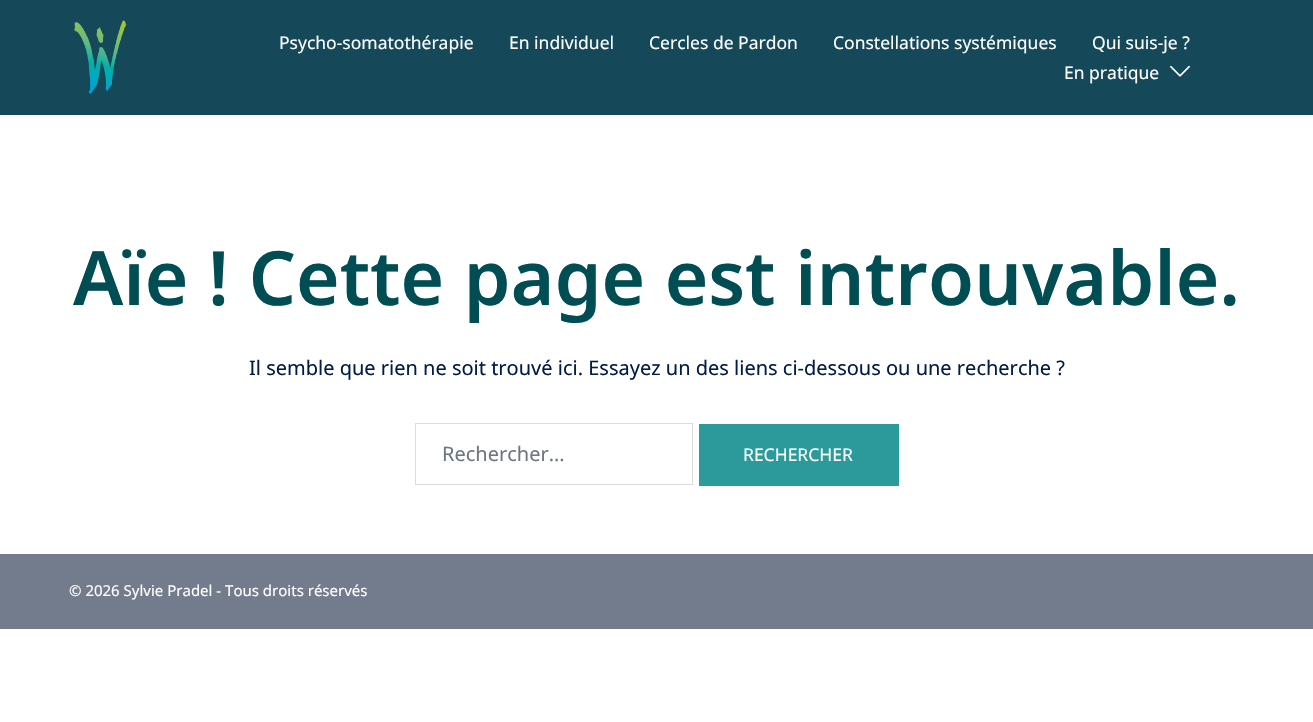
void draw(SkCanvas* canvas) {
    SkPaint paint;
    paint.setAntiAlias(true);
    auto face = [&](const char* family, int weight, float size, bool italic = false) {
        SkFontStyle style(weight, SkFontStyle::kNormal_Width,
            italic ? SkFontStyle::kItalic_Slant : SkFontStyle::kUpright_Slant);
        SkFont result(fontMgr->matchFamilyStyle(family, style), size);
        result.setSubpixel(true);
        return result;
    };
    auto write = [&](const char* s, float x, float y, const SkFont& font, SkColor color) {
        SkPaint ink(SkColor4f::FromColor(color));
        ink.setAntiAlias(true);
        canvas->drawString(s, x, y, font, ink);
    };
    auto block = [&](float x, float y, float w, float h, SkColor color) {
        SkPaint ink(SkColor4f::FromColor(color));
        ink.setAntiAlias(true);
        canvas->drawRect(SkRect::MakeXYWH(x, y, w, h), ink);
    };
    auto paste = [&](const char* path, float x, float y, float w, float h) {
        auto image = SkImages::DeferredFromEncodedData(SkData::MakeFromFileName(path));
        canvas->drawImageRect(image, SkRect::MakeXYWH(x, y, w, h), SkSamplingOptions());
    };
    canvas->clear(SK_ColorWHITE);
    block(0, 0, 1313, 115, SkColorSetRGB(21, 72, 88));
    paste("pic1.png", 74, 20, 53, 74);
    auto kFont1 = face("Noto Sans", 400, 17.5f);
    write("Psycho-somatothérapie", 279, 49, kFont1, SK_ColorWHITE);
    write("En individuel", 509, 49, kFont1, SK_ColorWHITE);
    write("Cercles de Pardon", 649, 49, kFont1, SK_ColorWHITE);
    write("Constellations systémiques", 833, 49, kFont1, SK_ColorWHITE);
    write("Qui suis-je ?", 1092, 49, kFont1, SK_ColorWHITE);
    write("En pratique", 1064, 79, kFont1, SK_ColorWHITE);
    paste("pic2.png", 1170, 65, 20, 12);
    auto kFont2 = face("Noto Sans", 600, 75);
    write("Aïe ! Cette page est introuvable.", 73, 305, kFont2, SkColorSetRGB(0, 78, 84));
    auto kFont3 = face("Noto Sans", 400, 20);
    write("Il semble que rien ne soit trouvé ici. Essayez un des liens ci-dessous ou une recherche ?", 249, 375, kFont3, SkColorSetRGB(2, 28, 74));
    paint.setStyle(SkPaint::kStroke_Style);
    paint.setStrokeWidth(1);
    paint.setColor(SkColorSetRGB(219, 219, 219));
    canvas->drawRect(SkRect::MakeXYWH(415.5f, 423.5f, 277, 61), paint);
    write("Rechercher…", 442, 461, kFont3, SkColorSetRGB(109, 118, 133));
    block(699, 424, 200, 62, SkColorSetRGB(44, 154, 155));
    write("RECHERCHER", 743, 461, kFont1, SK_ColorWHITE);
    block(0, 554, 1313, 75, SkColorSetRGB(115, 124, 140));
    auto kFont4 = face("Noto Sans", 400, 15);
    write("© 2026 Sylvie Pradel - Tous droits réservés", 69, 596, kFont4, SK_ColorWHITE);
}
